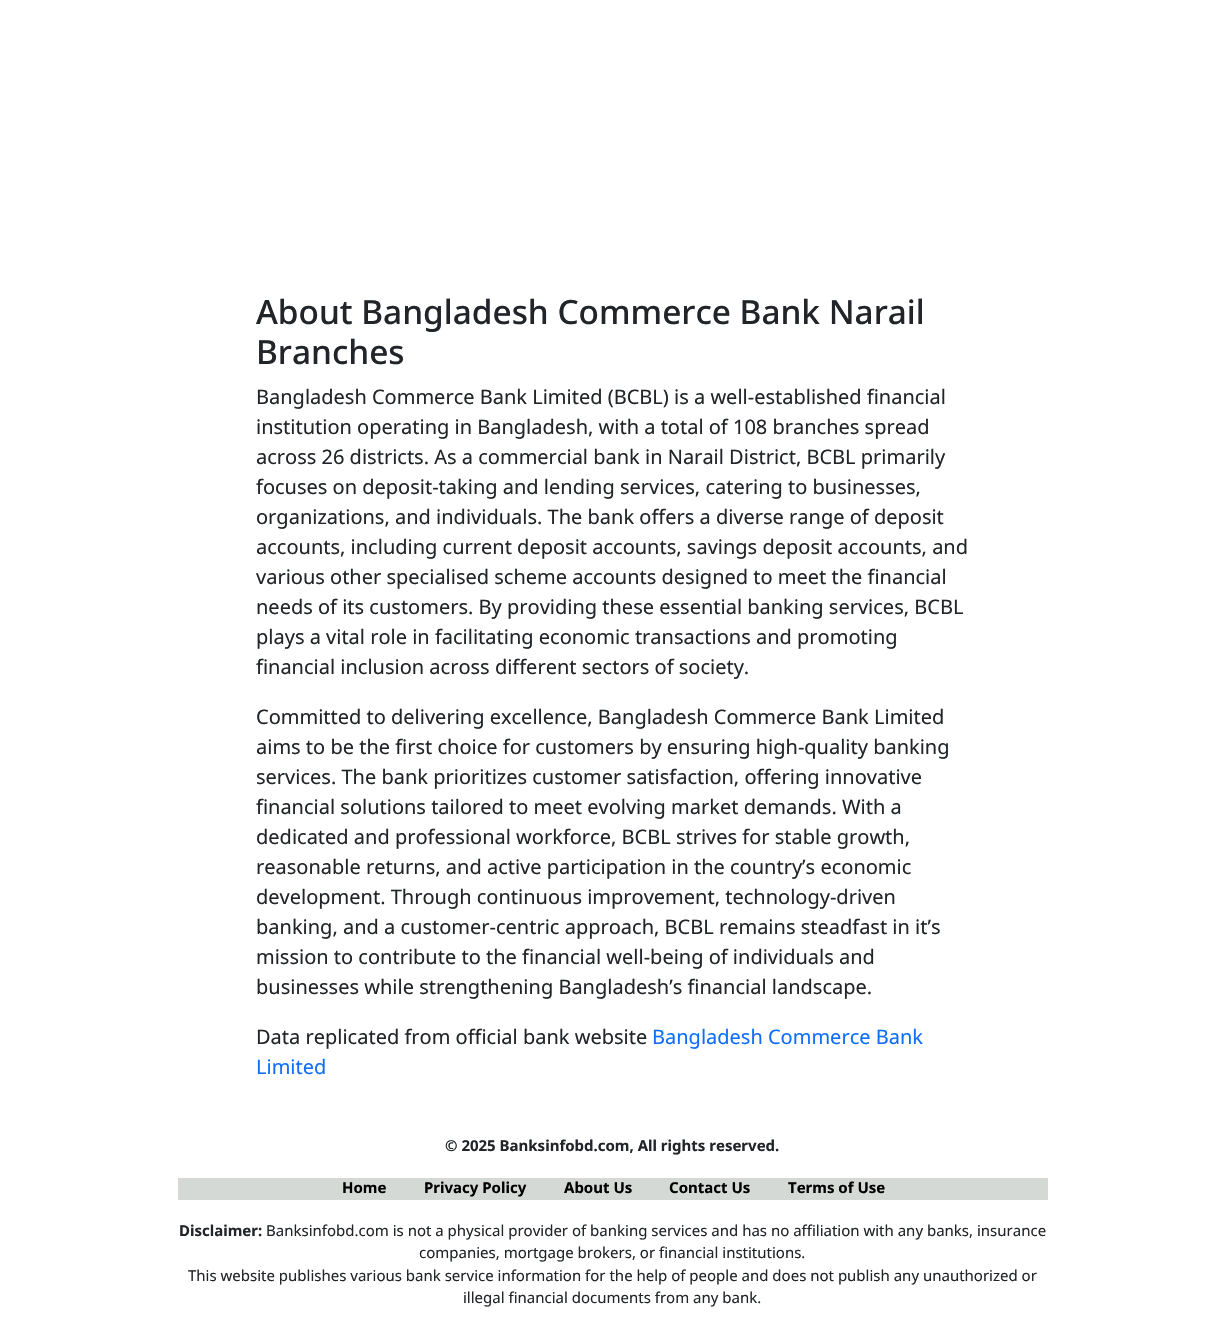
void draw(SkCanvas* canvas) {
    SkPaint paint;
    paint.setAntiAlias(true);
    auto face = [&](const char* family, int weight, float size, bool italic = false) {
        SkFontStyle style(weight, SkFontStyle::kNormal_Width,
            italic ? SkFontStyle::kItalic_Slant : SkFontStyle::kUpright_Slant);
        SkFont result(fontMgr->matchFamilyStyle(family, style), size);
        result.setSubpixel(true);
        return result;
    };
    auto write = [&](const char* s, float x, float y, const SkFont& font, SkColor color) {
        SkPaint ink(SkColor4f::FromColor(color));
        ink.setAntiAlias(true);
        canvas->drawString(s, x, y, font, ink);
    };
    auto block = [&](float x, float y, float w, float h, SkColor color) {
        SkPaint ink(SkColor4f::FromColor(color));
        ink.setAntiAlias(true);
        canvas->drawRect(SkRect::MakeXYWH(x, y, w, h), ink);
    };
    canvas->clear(SK_ColorWHITE);
    auto kFont1 = face("Noto Sans", 500, 33.35f);
    write("About Bangladesh Commerce Bank Narail", 256, 324, kFont1, SkColorSetRGB(33, 37, 41));
    write("Branches", 256, 364, kFont1, SkColorSetRGB(33, 37, 41));
    auto kFont2 = face("Noto Sans", 400, 20);
    write("Bangladesh Commerce Bank Limited (BCBL) is a well-established financial", 256, 404, kFont2, SkColorSetRGB(33, 37, 41));
    write("institution operating in Bangladesh, with a total of 108 branches spread", 256, 434, kFont2, SkColorSetRGB(33, 37, 41));
    write("across 26 districts. As a commercial bank in Narail District, BCBL primarily", 256, 464, kFont2, SkColorSetRGB(33, 37, 41));
    write("focuses on deposit-taking and lending services, catering to businesses,", 256, 494, kFont2, SkColorSetRGB(33, 37, 41));
    write("organizations, and individuals. The bank offers a diverse range of deposit", 256, 524, kFont2, SkColorSetRGB(33, 37, 41));
    write("accounts, including current deposit accounts, savings deposit accounts, and", 256, 554, kFont2, SkColorSetRGB(33, 37, 41));
    write("various other specialised scheme accounts designed to meet the financial", 256, 584, kFont2, SkColorSetRGB(33, 37, 41));
    write("needs of its customers. By providing these essential banking services, BCBL", 256, 614, kFont2, SkColorSetRGB(33, 37, 41));
    write("plays a vital role in facilitating economic transactions and promoting", 256, 644, kFont2, SkColorSetRGB(33, 37, 41));
    write("financial inclusion across different sectors of society.", 256, 674, kFont2, SkColorSetRGB(33, 37, 41));
    write("Committed to delivering excellence, Bangladesh Commerce Bank Limited", 256, 724, kFont2, SkColorSetRGB(33, 37, 41));
    write("aims to be the first choice for customers by ensuring high-quality banking", 256, 754, kFont2, SkColorSetRGB(33, 37, 41));
    write("services. The bank prioritizes customer satisfaction, offering innovative", 256, 784, kFont2, SkColorSetRGB(33, 37, 41));
    write("financial solutions tailored to meet evolving market demands. With a", 256, 814, kFont2, SkColorSetRGB(33, 37, 41));
    write("dedicated and professional workforce, BCBL strives for stable growth,", 256, 844, kFont2, SkColorSetRGB(33, 37, 41));
    write("reasonable returns, and active participation in the country’s economic", 256, 874, kFont2, SkColorSetRGB(33, 37, 41));
    write("development. Through continuous improvement, technology-driven", 256, 904, kFont2, SkColorSetRGB(33, 37, 41));
    write("banking, and a customer-centric approach, BCBL remains steadfast in it’s", 256, 934, kFont2, SkColorSetRGB(33, 37, 41));
    write("mission to contribute to the financial well-being of individuals and", 256, 964, kFont2, SkColorSetRGB(33, 37, 41));
    write("businesses while strengthening Bangladesh’s financial landscape.", 256, 994, kFont2, SkColorSetRGB(33, 37, 41));
    write("Data replicated from official bank website", 256, 1044, kFont2, SkColorSetRGB(33, 37, 41));
    write("Bangladesh Commerce Bank", 652, 1044, kFont2, SkColorSetRGB(13, 110, 253));
    write("Limited", 256, 1074, kFont2, SkColorSetRGB(13, 110, 253));
    auto kFont3 = face("Noto Sans", 700, 15);
    write("© 2025 Banksinfobd.com, All rights reserved.", 445, 1151, kFont3, SkColorSetRGB(33, 37, 41));
    block(178, 1178, 870, 22, SkColorSetRGB(212, 217, 214));
    write("Home", 342, 1193, kFont3, SK_ColorBLACK);
    write("Privacy Policy", 424, 1193, kFont3, SK_ColorBLACK);
    write("About Us", 564, 1193, kFont3, SK_ColorBLACK);
    write("Contact Us", 669, 1193, kFont3, SK_ColorBLACK);
    write("Terms of Use", 788, 1193, kFont3, SK_ColorBLACK);
    write("Disclaimer:", 179, 1236, kFont3, SkColorSetRGB(33, 37, 41));
    auto kFont4 = face("Noto Sans", 400, 15);
    write("Banksinfobd.com is not a physical provider of banking services and has no affiliation with any banks, insurance", 266, 1236, kFont4, SkColorSetRGB(33, 37, 41));
    write("companies, mortgage brokers, or financial institutions.", 419, 1258, kFont4, SkColorSetRGB(33, 37, 41));
    write("This website publishes various bank service information for the help of people and does not publish any unauthorized or", 188, 1281, kFont4, SkColorSetRGB(33, 37, 41));
    write("illegal financial documents from any bank.", 463, 1303, kFont4, SkColorSetRGB(33, 37, 41));
}
